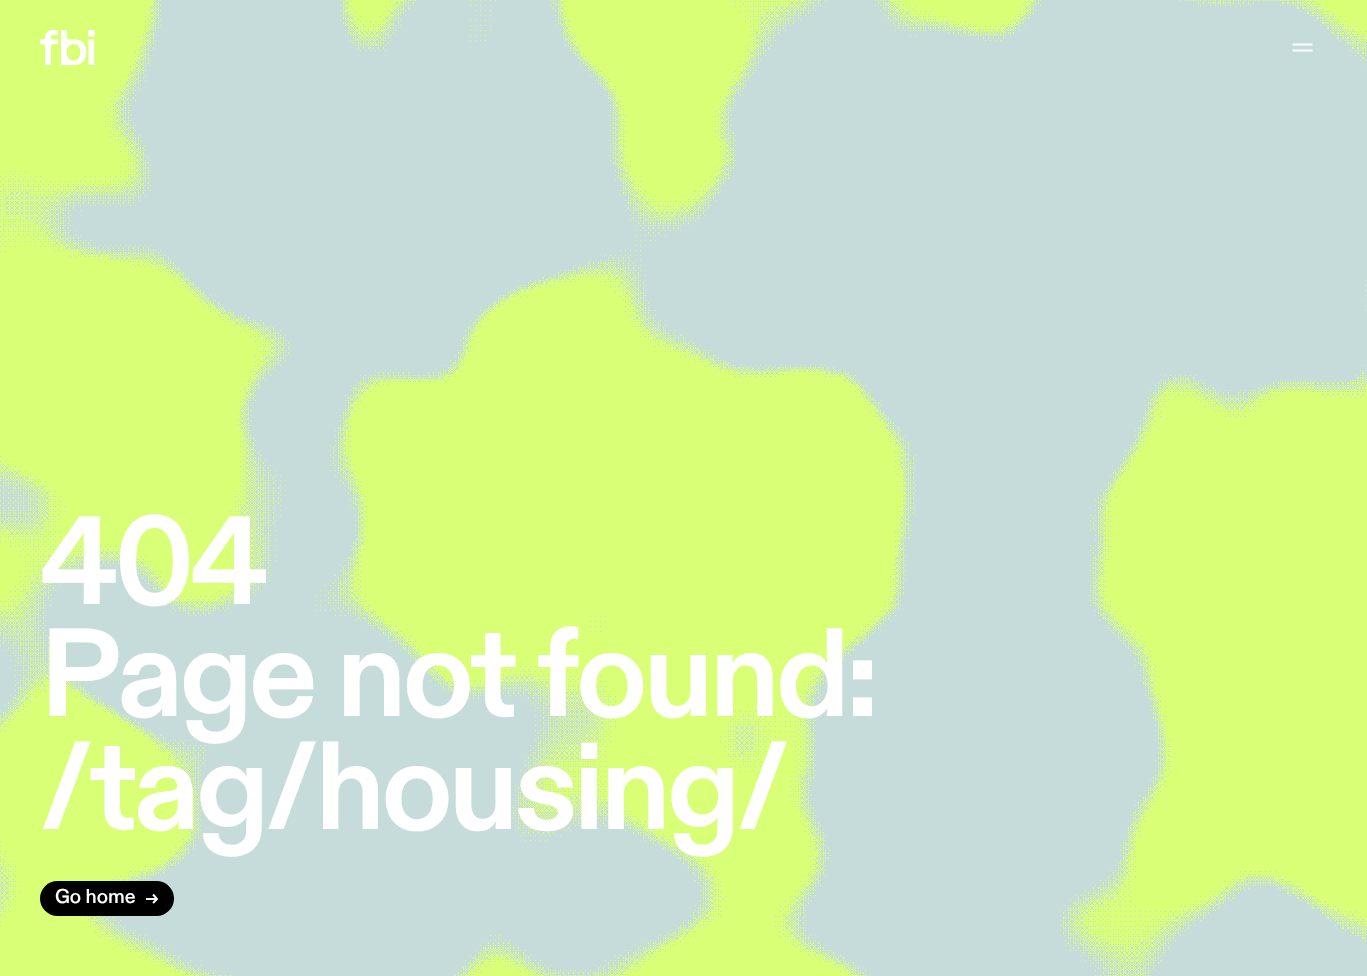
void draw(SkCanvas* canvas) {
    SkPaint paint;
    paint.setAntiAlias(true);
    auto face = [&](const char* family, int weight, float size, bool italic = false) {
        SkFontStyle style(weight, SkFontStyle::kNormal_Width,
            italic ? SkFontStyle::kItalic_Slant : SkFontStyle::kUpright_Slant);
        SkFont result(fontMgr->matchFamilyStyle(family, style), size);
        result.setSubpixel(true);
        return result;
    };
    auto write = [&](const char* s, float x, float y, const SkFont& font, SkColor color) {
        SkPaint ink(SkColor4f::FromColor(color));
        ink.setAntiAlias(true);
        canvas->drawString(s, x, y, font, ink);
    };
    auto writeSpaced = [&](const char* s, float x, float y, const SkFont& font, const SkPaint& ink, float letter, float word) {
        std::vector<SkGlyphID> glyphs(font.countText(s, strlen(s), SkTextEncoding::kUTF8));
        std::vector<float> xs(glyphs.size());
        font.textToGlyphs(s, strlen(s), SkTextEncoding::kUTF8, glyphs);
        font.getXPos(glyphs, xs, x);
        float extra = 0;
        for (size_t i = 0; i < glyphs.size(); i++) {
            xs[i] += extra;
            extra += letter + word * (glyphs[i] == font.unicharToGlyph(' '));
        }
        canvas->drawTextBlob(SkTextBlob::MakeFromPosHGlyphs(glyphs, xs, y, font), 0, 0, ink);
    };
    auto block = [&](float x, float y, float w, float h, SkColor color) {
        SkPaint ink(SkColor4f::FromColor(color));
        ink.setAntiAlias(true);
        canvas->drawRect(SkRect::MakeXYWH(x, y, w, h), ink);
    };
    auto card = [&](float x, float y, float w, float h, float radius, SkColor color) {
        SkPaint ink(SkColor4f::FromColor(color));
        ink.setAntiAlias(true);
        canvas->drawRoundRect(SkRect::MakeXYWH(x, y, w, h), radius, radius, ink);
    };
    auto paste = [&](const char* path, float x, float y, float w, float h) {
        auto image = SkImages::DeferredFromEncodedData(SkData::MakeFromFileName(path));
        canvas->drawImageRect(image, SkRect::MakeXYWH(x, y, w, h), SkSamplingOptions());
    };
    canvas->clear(SK_ColorWHITE);
    paste("pic1.png", 0, 0, 1367, 976);
    paste("pic2.png", 40, 30, 55, 35);
    paint.setStyle(SkPaint::kStroke_Style);
    paint.setStrokeWidth(2.2f);
    paint.setColor(SK_ColorWHITE);
    canvas->drawPath(SkPathBuilder().moveTo(1292.5f, 44.5f).lineTo(1312.5f, 44.5f).moveTo(1292.5f, 50.5f).lineTo(1312.5f, 50.5f).detach(), paint);
    auto kFont1 = face("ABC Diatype", 700, 125);
    paint.setStyle(SkPaint::kFill_Style);
    writeSpaced("404", 40, 604, kFont1, paint, -3.75f, 0);
    writeSpaced("Page not found:", 40, 716, kFont1, paint, -3.75f, 0);
    writeSpaced("/tag/housing/", 40, 829, kFont1, paint, -3.75f, 0);
    card(40, 881, 134, 35, 17.5f, SK_ColorBLACK);
    auto kFont2 = face("ABC Diatype", 500, 20);
    write("Go home", 55, 903, kFont2, SK_ColorWHITE);
    block(146, 898, 11, 2, SkColorSetRGB(242, 242, 242));
    paint.setStyle(SkPaint::kStroke_Style);
    paint.setStrokeWidth(1.9f);
    paint.setStrokeJoin(SkPaint::kRound_Join);
    canvas->drawPath(SkPathBuilder().moveTo(153, 894.5f).lineTo(157, 899).lineTo(153, 903).detach(), paint);
}
